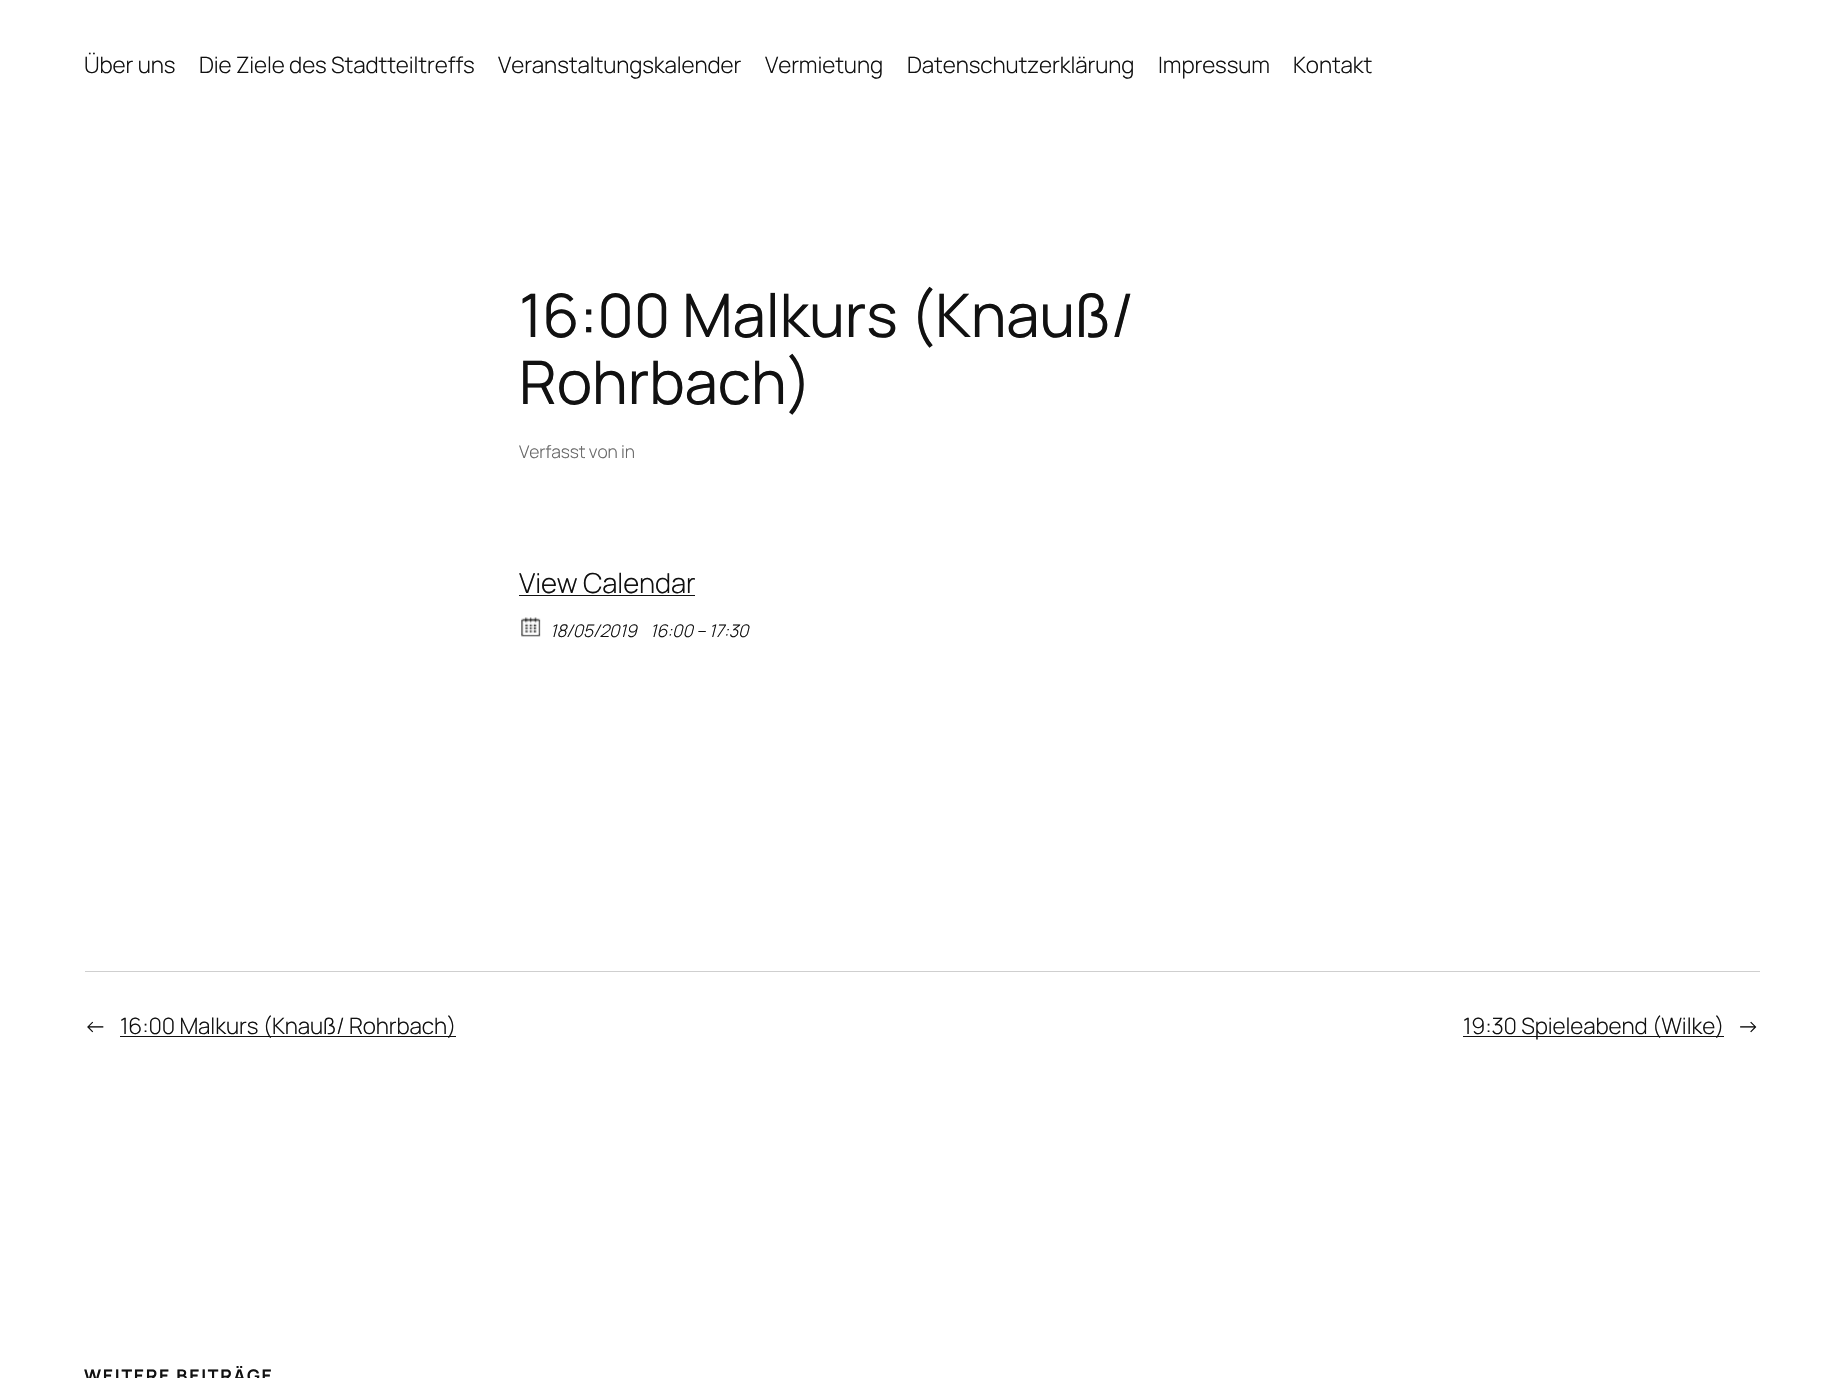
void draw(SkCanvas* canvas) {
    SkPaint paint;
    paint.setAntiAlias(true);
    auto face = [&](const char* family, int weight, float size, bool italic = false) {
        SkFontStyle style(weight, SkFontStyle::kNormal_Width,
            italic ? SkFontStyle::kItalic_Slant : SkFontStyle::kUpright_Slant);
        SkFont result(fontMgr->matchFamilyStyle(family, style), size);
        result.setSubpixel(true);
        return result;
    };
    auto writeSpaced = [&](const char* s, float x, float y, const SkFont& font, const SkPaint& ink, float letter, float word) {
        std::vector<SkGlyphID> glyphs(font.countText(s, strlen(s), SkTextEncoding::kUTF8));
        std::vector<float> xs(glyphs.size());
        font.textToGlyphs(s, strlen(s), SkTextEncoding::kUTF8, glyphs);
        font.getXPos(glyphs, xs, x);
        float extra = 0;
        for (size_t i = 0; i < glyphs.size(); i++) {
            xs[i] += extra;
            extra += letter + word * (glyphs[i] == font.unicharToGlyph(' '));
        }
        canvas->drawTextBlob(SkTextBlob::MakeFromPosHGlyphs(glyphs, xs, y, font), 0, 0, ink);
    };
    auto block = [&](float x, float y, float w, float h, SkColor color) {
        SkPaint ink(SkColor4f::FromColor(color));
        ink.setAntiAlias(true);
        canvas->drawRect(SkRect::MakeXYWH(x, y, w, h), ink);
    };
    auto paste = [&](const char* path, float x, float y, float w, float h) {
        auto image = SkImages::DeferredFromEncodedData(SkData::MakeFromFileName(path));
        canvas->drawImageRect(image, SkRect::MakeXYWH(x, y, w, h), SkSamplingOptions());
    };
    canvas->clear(SK_ColorWHITE);
    auto kFont1 = face("Manrope", 300, 22.5f);
    paint.setColor(SkColorSetRGB(17, 17, 17));
    writeSpaced("Über uns", 84, 73, kFont1, paint, -0.1f, 0);
    writeSpaced("Die Ziele des Stadtteiltreffs", 199, 73, kFont1, paint, -0.1f, 0);
    writeSpaced("Veranstaltungskalender", 498, 73, kFont1, paint, -0.1f, 0);
    writeSpaced("Vermietung", 765, 73, kFont1, paint, -0.1f, 0);
    writeSpaced("Datenschutzerklärung", 907, 73, kFont1, paint, -0.1f, 0);
    writeSpaced("Impressum", 1158, 73, kFont1, paint, -0.1f, 0);
    writeSpaced("Kontakt", 1293, 73, kFont1, paint, -0.1f, 0);
    auto kFont2 = face("Manrope", 400, 60);
    writeSpaced("16:00 Malkurs (Knauß/", 519, 337, kFont2, paint, -0.1f, 0);
    writeSpaced("Rohrbach)", 519, 404, kFont2, paint, -0.1f, 0);
    auto kFont3 = face("Manrope", 300, 17.5f);
    paint.setColor(SkColorSetRGB(104, 104, 104));
    writeSpaced("Verfasst von in", 519, 458, kFont3, paint, -0.1f, 0);
    auto kFont4 = face("Manrope", 300, 27.5f);
    paint.setColor(SkColorSetRGB(17, 17, 17));
    writeSpaced("View Calendar", 519, 593, kFont4, paint, -0.1f, 0);
    block(519, 595, 176, 1, SkColorSetRGB(17, 17, 17));
    paste("pic1.png", 521, 617, 20, 20);
    auto kFont5 = face("Manrope", 300, 17.5f, true);
    writeSpaced("18/05/2019", 550, 637, kFont5, paint, -0.1f, 0);
    writeSpaced("16:00 – 17:30", 650, 637, kFont5, paint, -0.1f, 0);
    block(85, 971, 1675, 1, SkColorSetRGB(207, 207, 207));
    writeSpaced("←", 84, 1034, kFont1, paint, -0.1f, 0);
    block(120, 1036, 336, 1, SkColorSetRGB(17, 17, 17));
    writeSpaced("16:00 Malkurs (Knauß/ Rohrbach)", 120, 1034, kFont1, paint, -0.1f, 0);
    block(1463, 1036, 261, 1, SkColorSetRGB(17, 17, 17));
    writeSpaced("19:30 Spieleabend (Wilke)", 1463, 1034, kFont1, paint, -0.1f, 0);
    writeSpaced("→", 1737, 1034, kFont1, paint, -0.1f, 0);
    auto kFont6 = face("Manrope", 700, 17.5f);
    writeSpaced("WEITERE BEITRÄGE", 84, 1382, kFont6, paint, 1.75f, 0);
}
